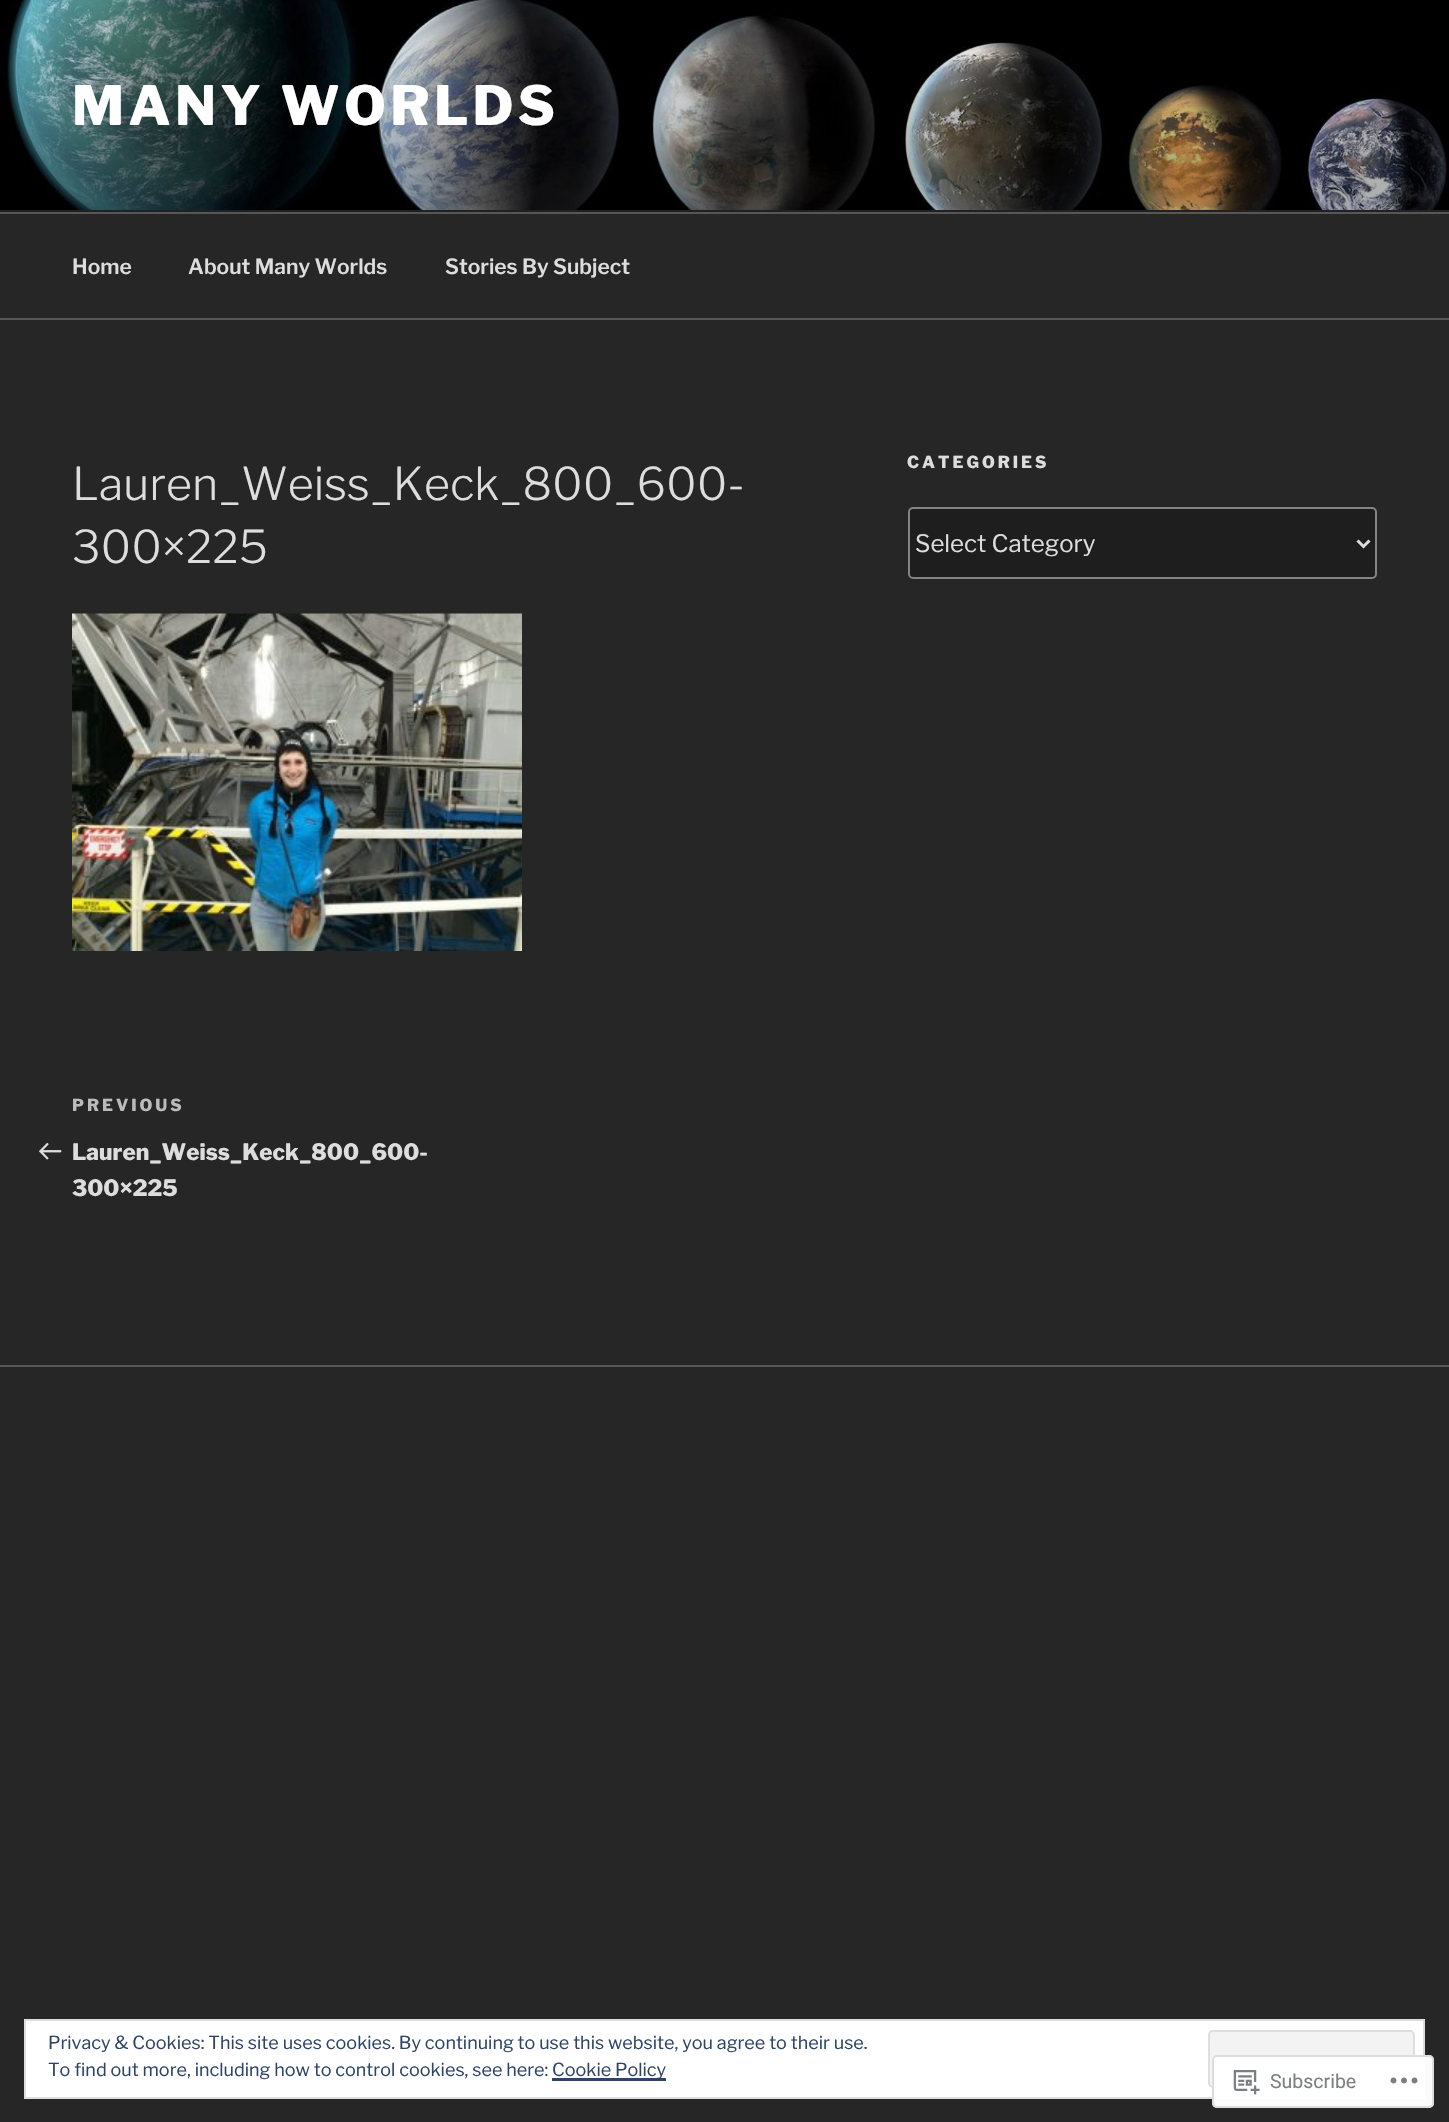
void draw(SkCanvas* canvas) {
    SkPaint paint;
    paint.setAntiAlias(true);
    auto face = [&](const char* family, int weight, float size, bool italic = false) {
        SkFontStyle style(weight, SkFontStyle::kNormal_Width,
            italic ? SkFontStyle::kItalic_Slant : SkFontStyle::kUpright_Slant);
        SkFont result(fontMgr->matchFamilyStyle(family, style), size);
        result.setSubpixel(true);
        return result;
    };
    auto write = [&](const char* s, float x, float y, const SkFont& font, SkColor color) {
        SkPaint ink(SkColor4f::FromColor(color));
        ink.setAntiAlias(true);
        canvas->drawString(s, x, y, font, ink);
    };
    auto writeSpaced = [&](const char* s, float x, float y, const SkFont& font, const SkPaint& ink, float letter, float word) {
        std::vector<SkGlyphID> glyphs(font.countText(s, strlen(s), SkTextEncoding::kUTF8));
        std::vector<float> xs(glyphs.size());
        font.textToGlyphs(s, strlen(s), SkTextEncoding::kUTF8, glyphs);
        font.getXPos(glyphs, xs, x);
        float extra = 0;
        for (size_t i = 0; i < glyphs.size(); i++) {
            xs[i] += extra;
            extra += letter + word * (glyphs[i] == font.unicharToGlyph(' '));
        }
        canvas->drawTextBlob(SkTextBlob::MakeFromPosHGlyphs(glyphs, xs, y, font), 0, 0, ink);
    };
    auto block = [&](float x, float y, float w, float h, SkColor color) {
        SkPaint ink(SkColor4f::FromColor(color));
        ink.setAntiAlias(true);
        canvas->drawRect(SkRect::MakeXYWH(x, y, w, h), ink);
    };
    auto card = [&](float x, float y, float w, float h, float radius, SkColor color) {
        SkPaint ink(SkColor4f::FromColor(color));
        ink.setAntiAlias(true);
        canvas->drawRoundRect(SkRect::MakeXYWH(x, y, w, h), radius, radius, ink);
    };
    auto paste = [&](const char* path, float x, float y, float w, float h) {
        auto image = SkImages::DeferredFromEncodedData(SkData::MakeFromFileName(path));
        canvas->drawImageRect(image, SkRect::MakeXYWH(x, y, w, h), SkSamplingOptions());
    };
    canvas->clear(SkColorSetRGB(38, 38, 38));
    block(0, 210, 1449, 2, SkColorSetRGB(33, 33, 33));
    paste("pic1.png", 0, 0, 1449, 210);
    auto kFont1 = face("Libre Franklin", 100, 54);
    paint.setColor(SK_ColorWHITE);
    writeSpaced("MANY WORLDS", 72, 125, kFont1, paint, 4.25f, 0);
    block(0, 212, 1449, 2, SkColorSetRGB(86, 86, 86));
    block(0, 318, 1449, 2, SkColorSetRGB(86, 86, 86));
    auto kFont2 = face("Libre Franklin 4", 100, 21);
    write("Home", 72, 274, kFont2, SkColorSetRGB(221, 221, 221));
    write("About Many Worlds", 188, 274, kFont2, SkColorSetRGB(221, 221, 221));
    write("Stories By Subject", 445, 274, kFont2, SkColorSetRGB(221, 221, 221));
    auto kFont3 = face("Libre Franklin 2", 100, 45);
    write("Lauren_Weiss_Keck_800_600-", 72, 500, kFont3, SkColorSetRGB(221, 221, 221));
    write("300×225", 72, 563, kFont3, SkColorSetRGB(221, 221, 221));
    paste("pic2.png", 72, 613, 450, 338);
    auto kFont4 = face("Libre Franklin", 100, 16.5f);
    paint.setColor(SkColorSetRGB(187, 187, 187));
    writeSpaced("PREVIOUS", 72, 1111, kFont4, paint, 3, 0);
    paste("pic3.png", 39, 1142, 23, 18);
    auto kFont5 = face("Libre Franklin", 100, 22.5f);
    write("Lauren_Weiss_Keck_800_600-", 72, 1160, kFont5, SkColorSetRGB(221, 221, 221));
    write("300×225", 72, 1196, kFont5, SkColorSetRGB(221, 221, 221));
    paint.setColor(SkColorSetRGB(221, 221, 221));
    writeSpaced("CATEGORIES", 907, 468, kFont4, paint, 3, 0);
    paint.setColor(SkColorSetRGB(30, 30, 30));
    canvas->drawRoundRect(SkRect::MakeXYWH(909, 508, 467, 70), 4, 4, paint);
    paint.setStyle(SkPaint::kStroke_Style);
    paint.setStrokeWidth(2);
    paint.setColor(SkColorSetRGB(132, 132, 132));
    canvas->drawRoundRect(SkRect::MakeXYWH(909, 508, 467, 70), 4, 4, paint);
    paint.setStrokeWidth(3);
    paint.setColor(SkColorSetRGB(221, 221, 221));
    canvas->drawPath(SkPathBuilder().moveTo(1357.5f, 540.5f).lineTo(1363.5f, 546.5f).lineTo(1369.5f, 540.5f).detach(), paint);
    auto kFont6 = face("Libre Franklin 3", 100, 24);
    write("Select Category", 915, 552, kFont6, SkColorSetRGB(221, 221, 221));
    block(0, 1365, 1449, 2, SkColorSetRGB(86, 86, 86));
    paint.setStyle(SkPaint::kFill_Style);
    paint.setColor(SK_ColorWHITE);
    canvas->drawRect(SkRect::MakeXYWH(25, 2020, 1399, 78), paint);
    paint.setStyle(SkPaint::kStroke_Style);
    paint.setStrokeWidth(2);
    paint.setColor(SkColorSetRGB(222, 222, 222));
    canvas->drawRect(SkRect::MakeXYWH(25, 2020, 1399, 78), paint);
    auto kFont7 = face("Libre Franklin 3", 100, 18);
    write("Privacy & Cookies: This site uses cookies. By continuing to use this website, you agree to their use.", 48, 2049, kFont7, SkColorSetRGB(46, 68, 103));
    paint.setStyle(SkPaint::kFill_Style);
    paint.setColor(SkColorSetRGB(243, 243, 243));
    canvas->drawRoundRect(SkRect::MakeXYWH(1209, 2031, 205, 56), 4, 4, paint);
    paint.setStyle(SkPaint::kStroke_Style);
    paint.setColor(SkColorSetRGB(222, 222, 222));
    canvas->drawRoundRect(SkRect::MakeXYWH(1209, 2031, 205, 56), 4, 4, paint);
    write("To find out more, including how to control cookies, see here:", 48, 2076, kFont7, SkColorSetRGB(46, 68, 103));
    block(552, 2078, 114, 3, SkColorSetRGB(46, 68, 103));
    write("Cookie Policy", 552, 2076, kFont7, SkColorSetRGB(46, 68, 103));
    card(1212, 2055, 222, 53, 5, SkColorSetARGB(250, 255, 255, 255));
    paint.setColor(SkColorSetARGB(250, 220, 220, 222));
    canvas->drawRoundRect(SkRect::MakeXYWH(1213, 2056, 220, 51), 4, 4, paint);
    paste("pic4.png", 1233, 2070, 27, 25);
    auto kFont8 = face("Roboto", 400, 19.5f);
    write("Subscribe", 1270, 2088, kFont8, SkColorSetRGB(123, 127, 132));
    paste("pic5.png", 1390, 2077, 28, 7);
}
